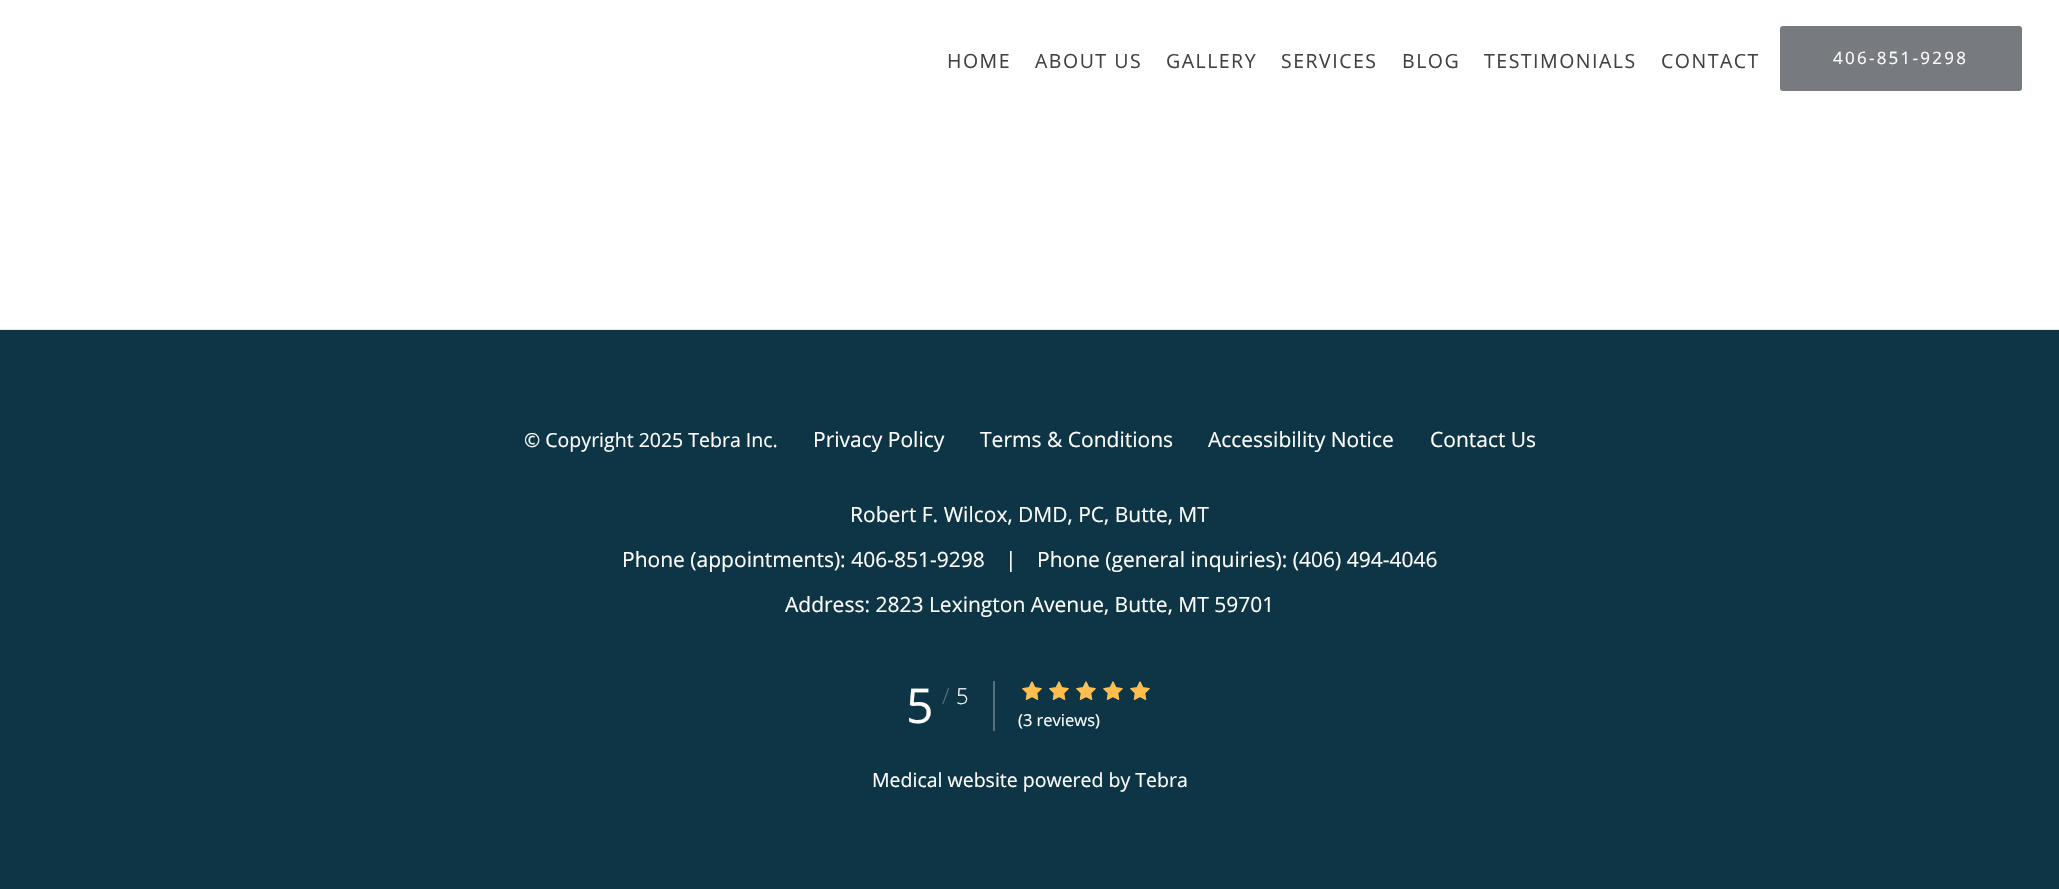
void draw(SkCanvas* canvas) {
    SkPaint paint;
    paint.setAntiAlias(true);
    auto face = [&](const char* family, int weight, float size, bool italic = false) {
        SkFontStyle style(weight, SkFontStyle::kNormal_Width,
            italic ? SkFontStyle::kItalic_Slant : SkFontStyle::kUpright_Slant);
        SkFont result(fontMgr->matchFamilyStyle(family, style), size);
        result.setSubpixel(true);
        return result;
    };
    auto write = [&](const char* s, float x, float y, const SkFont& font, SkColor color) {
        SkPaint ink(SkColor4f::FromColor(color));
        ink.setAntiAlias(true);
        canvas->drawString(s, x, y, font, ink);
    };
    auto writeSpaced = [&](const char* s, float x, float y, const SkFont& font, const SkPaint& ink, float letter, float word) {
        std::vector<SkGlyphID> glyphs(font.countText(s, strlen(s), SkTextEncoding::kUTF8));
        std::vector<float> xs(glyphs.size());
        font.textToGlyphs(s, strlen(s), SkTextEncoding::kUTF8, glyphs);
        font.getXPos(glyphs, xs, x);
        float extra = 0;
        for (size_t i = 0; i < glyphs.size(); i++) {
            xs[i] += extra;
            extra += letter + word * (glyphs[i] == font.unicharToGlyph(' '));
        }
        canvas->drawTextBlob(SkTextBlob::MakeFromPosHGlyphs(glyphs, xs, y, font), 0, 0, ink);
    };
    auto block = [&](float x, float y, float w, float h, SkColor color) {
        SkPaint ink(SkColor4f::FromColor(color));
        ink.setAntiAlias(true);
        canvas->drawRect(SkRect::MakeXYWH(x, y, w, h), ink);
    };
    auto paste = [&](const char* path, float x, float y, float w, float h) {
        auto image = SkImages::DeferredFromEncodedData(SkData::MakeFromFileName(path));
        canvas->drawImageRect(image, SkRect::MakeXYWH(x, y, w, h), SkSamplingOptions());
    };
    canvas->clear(SK_ColorWHITE);
    auto kFont1 = face("Open Sans", 400, 19.5f);
    paint.setColor(SkColorSetRGB(66, 66, 66));
    writeSpaced("HOME", 947, 68, kFont1, paint, 1.5f, 0);
    writeSpaced("ABOUT US", 1035, 68, kFont1, paint, 1.5f, 0);
    writeSpaced("GALLERY", 1166, 68, kFont1, paint, 1.5f, 0);
    writeSpaced("SERVICES", 1281, 68, kFont1, paint, 1.5f, 0);
    writeSpaced("BLOG", 1402, 68, kFont1, paint, 1.5f, 0);
    writeSpaced("TESTIMONIALS", 1484, 68, kFont1, paint, 1.5f, 0);
    writeSpaced("CONTACT", 1661, 68, kFont1, paint, 1.5f, 0);
    paint.setColor(SkColorSetRGB(119, 122, 127));
    canvas->drawRoundRect(SkRect::MakeXYWH(1779, 25, 244, 67), 4, 4, paint);
    paint.setStyle(SkPaint::kStroke_Style);
    paint.setStrokeWidth(2);
    paint.setColor(SK_ColorWHITE);
    canvas->drawRoundRect(SkRect::MakeXYWH(1779, 25, 244, 67), 4, 4, paint);
    auto kFont2 = face("Open Sans", 400, 17);
    paint.setStyle(SkPaint::kFill_Style);
    writeSpaced("406-851-9298", 1833, 64, kFont2, paint, 2.25f, 0);
    block(0, 329, 2059, 1, SkColorSetRGB(223, 229, 232));
    block(0, 330, 2059, 559, SkColorSetRGB(13, 53, 69));
    write("© Copyright 2025 Tebra Inc.", 524, 447, kFont1, SK_ColorWHITE);
    auto kFont3 = face("Open Sans", 400, 21);
    write("Privacy Policy", 813, 447, kFont3, SK_ColorWHITE);
    write("Terms & Conditions", 980, 447, kFont3, SK_ColorWHITE);
    write("Accessibility Notice", 1208, 447, kFont3, SK_ColorWHITE);
    write("Contact Us", 1430, 447, kFont3, SK_ColorWHITE);
    write("Robert F. Wilcox, DMD, PC, Butte, MT", 850, 522, kFont3, SK_ColorWHITE);
    write("Phone (appointments): 406-851-9298", 622, 567, kFont3, SK_ColorWHITE);
    write("|", 1005, 567, kFont3, SK_ColorWHITE);
    write("Phone (general inquiries): (406) 494-4046", 1037, 567, kFont3, SK_ColorWHITE);
    write("Address: 2823 Lexington Avenue, Butte, MT 59701", 785, 612, kFont3, SK_ColorWHITE);
    auto kFont4 = face("Open Sans", 400, 48);
    write("5", 906, 723, kFont4, SK_ColorWHITE);
    auto kFont5 = face("Open Sans", 300, 22);
    write("/", 942, 704, kFont5, SkColorSetRGB(86, 114, 125));
    write("5", 956, 704, kFont5, SK_ColorWHITE);
    block(993, 681, 2, 50, SkColorSetRGB(86, 114, 125));
    paste("pic1.png", 1022, 681, 20, 19);
    paste("pic1.png", 1049, 681, 20, 19);
    paste("pic1.png", 1076, 681, 20, 19);
    paste("pic1.png", 1103, 681, 20, 19);
    paste("pic1.png", 1130, 681, 20, 19);
    paste("pic2.png", 1022, 681, 20, 19);
    paste("pic2.png", 1049, 681, 20, 19);
    paste("pic2.png", 1076, 681, 20, 19);
    paste("pic2.png", 1103, 681, 20, 19);
    paste("pic2.png", 1130, 681, 20, 19);
    auto kFont6 = face("Open Sans", 400, 16.5f);
    write("(3 reviews)", 1018, 726, kFont6, SK_ColorWHITE);
    write("Medical website powered by Tebra", 872, 787, kFont1, SK_ColorWHITE);
}
